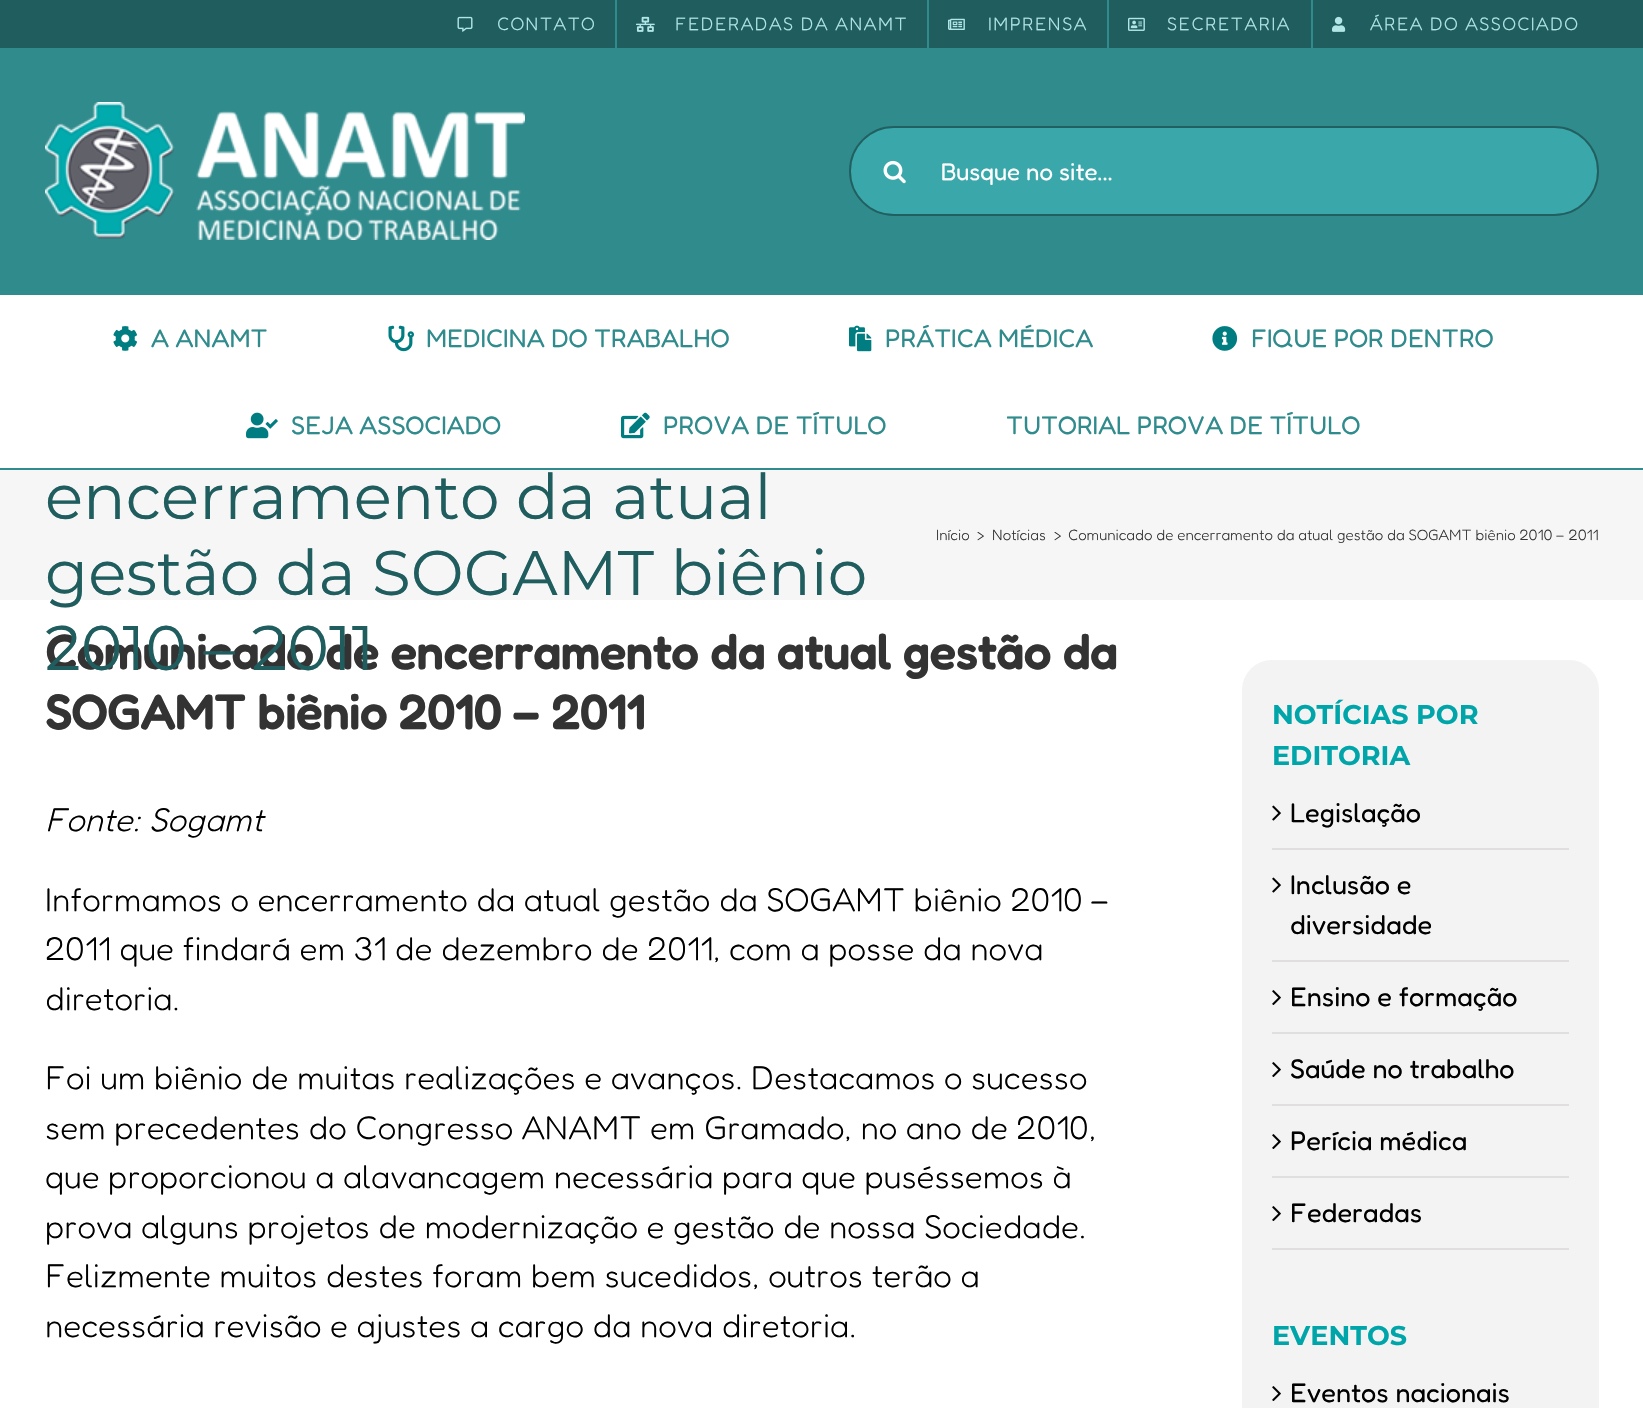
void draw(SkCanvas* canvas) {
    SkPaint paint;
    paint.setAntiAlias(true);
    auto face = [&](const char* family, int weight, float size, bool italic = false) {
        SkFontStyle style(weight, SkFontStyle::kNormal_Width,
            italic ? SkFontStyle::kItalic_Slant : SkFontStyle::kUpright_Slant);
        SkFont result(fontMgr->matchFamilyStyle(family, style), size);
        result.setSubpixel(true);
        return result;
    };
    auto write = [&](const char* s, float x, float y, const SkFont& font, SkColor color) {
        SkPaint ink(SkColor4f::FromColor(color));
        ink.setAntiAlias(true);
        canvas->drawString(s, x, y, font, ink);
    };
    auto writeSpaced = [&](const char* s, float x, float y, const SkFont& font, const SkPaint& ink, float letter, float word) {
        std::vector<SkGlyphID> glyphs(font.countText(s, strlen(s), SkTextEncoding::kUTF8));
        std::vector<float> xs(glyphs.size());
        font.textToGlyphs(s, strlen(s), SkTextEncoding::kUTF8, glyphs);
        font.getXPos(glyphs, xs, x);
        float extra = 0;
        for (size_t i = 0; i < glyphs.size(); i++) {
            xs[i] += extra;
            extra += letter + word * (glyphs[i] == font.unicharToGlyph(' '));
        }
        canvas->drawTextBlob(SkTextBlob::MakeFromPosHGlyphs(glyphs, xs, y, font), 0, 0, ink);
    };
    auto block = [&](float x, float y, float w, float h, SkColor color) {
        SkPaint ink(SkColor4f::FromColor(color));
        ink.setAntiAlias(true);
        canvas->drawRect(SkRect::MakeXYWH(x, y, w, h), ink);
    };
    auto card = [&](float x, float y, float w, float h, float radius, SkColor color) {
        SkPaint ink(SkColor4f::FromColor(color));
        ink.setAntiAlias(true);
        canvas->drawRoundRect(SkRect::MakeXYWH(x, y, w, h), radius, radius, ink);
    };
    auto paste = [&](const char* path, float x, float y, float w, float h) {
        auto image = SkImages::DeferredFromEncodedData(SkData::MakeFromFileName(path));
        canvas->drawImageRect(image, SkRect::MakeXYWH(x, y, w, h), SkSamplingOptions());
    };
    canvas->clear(SK_ColorWHITE);
    block(0, 0, 1643, 48, SkColorSetRGB(31, 93, 94));
    block(0, 48, 1643, 247, SkColorSetRGB(48, 139, 141));
    paste("pic1.png", 457, 16, 16, 16);
    auto kFont1 = face("Fredoka", 300, 18);
    paint.setColor(SkColorSetRGB(178, 229, 230));
    writeSpaced("CONTATO", 497, 30, kFont1, paint, 1.5f, 0);
    block(615, 0, 2, 48, SkColorSetRGB(48, 139, 141));
    paste("pic2.png", 636, 16, 19, 16);
    writeSpaced("FEDERADAS DA ANAMT", 675, 30, kFont1, paint, 1.5f, 0);
    block(927, 0, 2, 48, SkColorSetRGB(48, 139, 141));
    paste("pic3.png", 948, 18, 17, 12);
    writeSpaced("IMPRENSA", 988, 30, kFont1, paint, 1.5f, 0);
    block(1107, 0, 2, 48, SkColorSetRGB(48, 139, 141));
    paste("pic4.png", 1128, 17, 17, 14);
    writeSpaced("SECRETARIA", 1167, 30, kFont1, paint, 1.5f, 0);
    block(1311, 0, 2, 48, SkColorSetRGB(48, 139, 141));
    paste("pic5.png", 1332, 16, 14, 16);
    writeSpaced("ÁREA DO ASSOCIADO", 1370, 30, kFont1, paint, 1.5f, 0);
    paste("pic6.png", 45, 102, 480, 138);
    paint.setColor(SkColorSetRGB(58, 168, 171));
    canvas->drawRoundRect(SkRect::MakeXYWH(850, 127, 748, 88), 44, 44, paint);
    paint.setStyle(SkPaint::kStroke_Style);
    paint.setStrokeWidth(2);
    paint.setColor(SkColorSetRGB(33, 96, 97));
    canvas->drawRoundRect(SkRect::MakeXYWH(850, 127, 748, 88), 44, 44, paint);
    paste("pic7.png", 883, 160, 23, 24);
    auto kFont2 = face("Fredoka", 400, 24);
    write("Busque no site...", 941, 180, kFont2, SK_ColorWHITE);
    block(0, 468, 1643, 2, SkColorSetRGB(48, 139, 141));
    paste("pic8.png", 113, 326, 24, 25);
    auto kFont3 = face("Fredoka", 400, 25.5f);
    write("A ANAMT", 151, 347, kFont3, SkColorSetRGB(48, 139, 141));
    paste("pic9.png", 388, 325, 26, 27);
    write("MEDICINA DO TRABALHO", 426, 347, kFont3, SkColorSetRGB(48, 139, 141));
    paste("pic10.png", 849, 325, 23, 27);
    write("PRÁTICA MÉDICA", 885, 347, kFont3, SkColorSetRGB(48, 139, 141));
    paste("pic11.png", 1212, 326, 26, 25);
    write("FIQUE POR DENTRO", 1251, 347, kFont3, SkColorSetRGB(48, 139, 141));
    paste("pic12.png", 246, 412, 32, 27);
    write("SEJA ASSOCIADO", 291, 434, kFont3, SkColorSetRGB(48, 139, 141));
    paste("pic13.png", 621, 412, 29, 27);
    write("PROVA DE TÍTULO", 663, 434, kFont3, SkColorSetRGB(48, 139, 141));
    write("TUTORIAL PROVA DE TÍTULO", 1006, 434, kFont3, SkColorSetRGB(48, 139, 141));
    block(0, 470, 1643, 130, SkColorSetRGB(246, 246, 246));
    auto kFont4 = face("Montserrat", 100, 63);
    write("encerramento da atual", 45, 519, kFont4, SkColorSetRGB(31, 93, 94));
    write("gestão da SOGAMT biênio", 45, 595, kFont4, SkColorSetRGB(31, 93, 94));
    auto kFont5 = face("Fredoka", 700, 48);
    write("Comunicado de encerramento da atual gestão da", 45, 669, kFont5, SkColorSetRGB(51, 51, 51));
    write("2010 – 2011", 45, 670, kFont4, SkColorSetRGB(31, 93, 94));
    auto kFont6 = face("Fredoka", 300, 15);
    write("Início", 936, 540, kFont6, SkColorSetRGB(51, 51, 51));
    write(">", 977, 540, kFont6, SkColorSetRGB(51, 51, 51));
    write("Notícias", 992, 540, kFont6, SkColorSetRGB(51, 51, 51));
    write(">", 1054, 540, kFont6, SkColorSetRGB(51, 51, 51));
    write("Comunicado de encerramento da atual gestão da SOGAMT biênio 2010 – 2011", 1068, 540, kFont6, SkColorSetRGB(51, 51, 51));
    write("SOGAMT biênio 2010 – 2011", 45, 729, kFont5, SkColorSetRGB(51, 51, 51));
    auto kFont7 = face("Fredoka", 300, 33, true);
    write("Fonte: Sogamt", 45, 831, kFont7, SK_ColorBLACK);
    auto kFont8 = face("Fredoka", 300, 33);
    write("Informamos o encerramento da atual gestão da SOGAMT biênio 2010 –", 45, 911, kFont8, SK_ColorBLACK);
    write("2011 que findará em 31 de dezembro de 2011, com a posse da nova", 45, 960, kFont8, SK_ColorBLACK);
    write("diretoria.", 45, 1010, kFont8, SK_ColorBLACK);
    write("Foi um biênio de muitas realizações e avanços. Destacamos o sucesso", 45, 1089, kFont8, SK_ColorBLACK);
    write("sem precedentes do Congresso ANAMT em Gramado, no ano de 2010,", 45, 1139, kFont8, SK_ColorBLACK);
    write("que proporcionou a alavancagem necessária para que puséssemos à", 45, 1188, kFont8, SK_ColorBLACK);
    write("prova alguns projetos de modernização e gestão de nossa Sociedade.", 45, 1238, kFont8, SK_ColorBLACK);
    write("Felizmente muitos destes foram bem sucedidos, outros terão a", 45, 1287, kFont8, SK_ColorBLACK);
    write("necessária revisão e ajustes a cargo da nova diretoria.", 45, 1337, kFont8, SK_ColorBLACK);
    card(1242, 660, 357, 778, 30, SkColorSetRGB(243, 243, 243));
    auto kFont9 = face("Montserrat", 700, 27);
    write("NOTÍCIAS POR", 1272, 724, kFont9, SkColorSetRGB(0, 165, 169));
    write("EDITORIA", 1272, 765, kFont9, SkColorSetRGB(0, 165, 169));
    block(1272, 848, 297, 2, SkColorSetRGB(224, 222, 222));
    paste("pic14.png", 1272, 805, 9, 16);
    auto kFont10 = face("Fredoka", 400, 27);
    write("Legislação", 1290, 822, kFont10, SK_ColorBLACK);
    block(1272, 960, 297, 2, SkColorSetRGB(224, 222, 222));
    paste("pic14.png", 1272, 877, 9, 16);
    write("Inclusão e", 1290, 894, kFont10, SK_ColorBLACK);
    write("diversidade", 1290, 934, kFont10, SK_ColorBLACK);
    block(1272, 1032, 297, 2, SkColorSetRGB(224, 222, 222));
    paste("pic15.png", 1272, 990, 9, 15);
    write("Ensino e formação", 1290, 1006, kFont10, SK_ColorBLACK);
    block(1272, 1104, 297, 2, SkColorSetRGB(224, 222, 222));
    paste("pic15.png", 1272, 1062, 9, 15);
    write("Saúde no trabalho", 1290, 1078, kFont10, SK_ColorBLACK);
    block(1272, 1176, 297, 2, SkColorSetRGB(224, 222, 222));
    paste("pic15.png", 1272, 1134, 9, 15);
    write("Perícia médica", 1290, 1150, kFont10, SK_ColorBLACK);
    block(1272, 1248, 297, 2, SkColorSetRGB(224, 222, 222));
    paste("pic15.png", 1272, 1206, 9, 15);
    write("Federadas", 1290, 1222, kFont10, SK_ColorBLACK);
    write("EVENTOS", 1272, 1345, kFont9, SkColorSetRGB(0, 165, 169));
    paste("pic15.png", 1272, 1386, 9, 15);
    write("Eventos nacionais", 1290, 1402, kFont10, SK_ColorBLACK);
}
